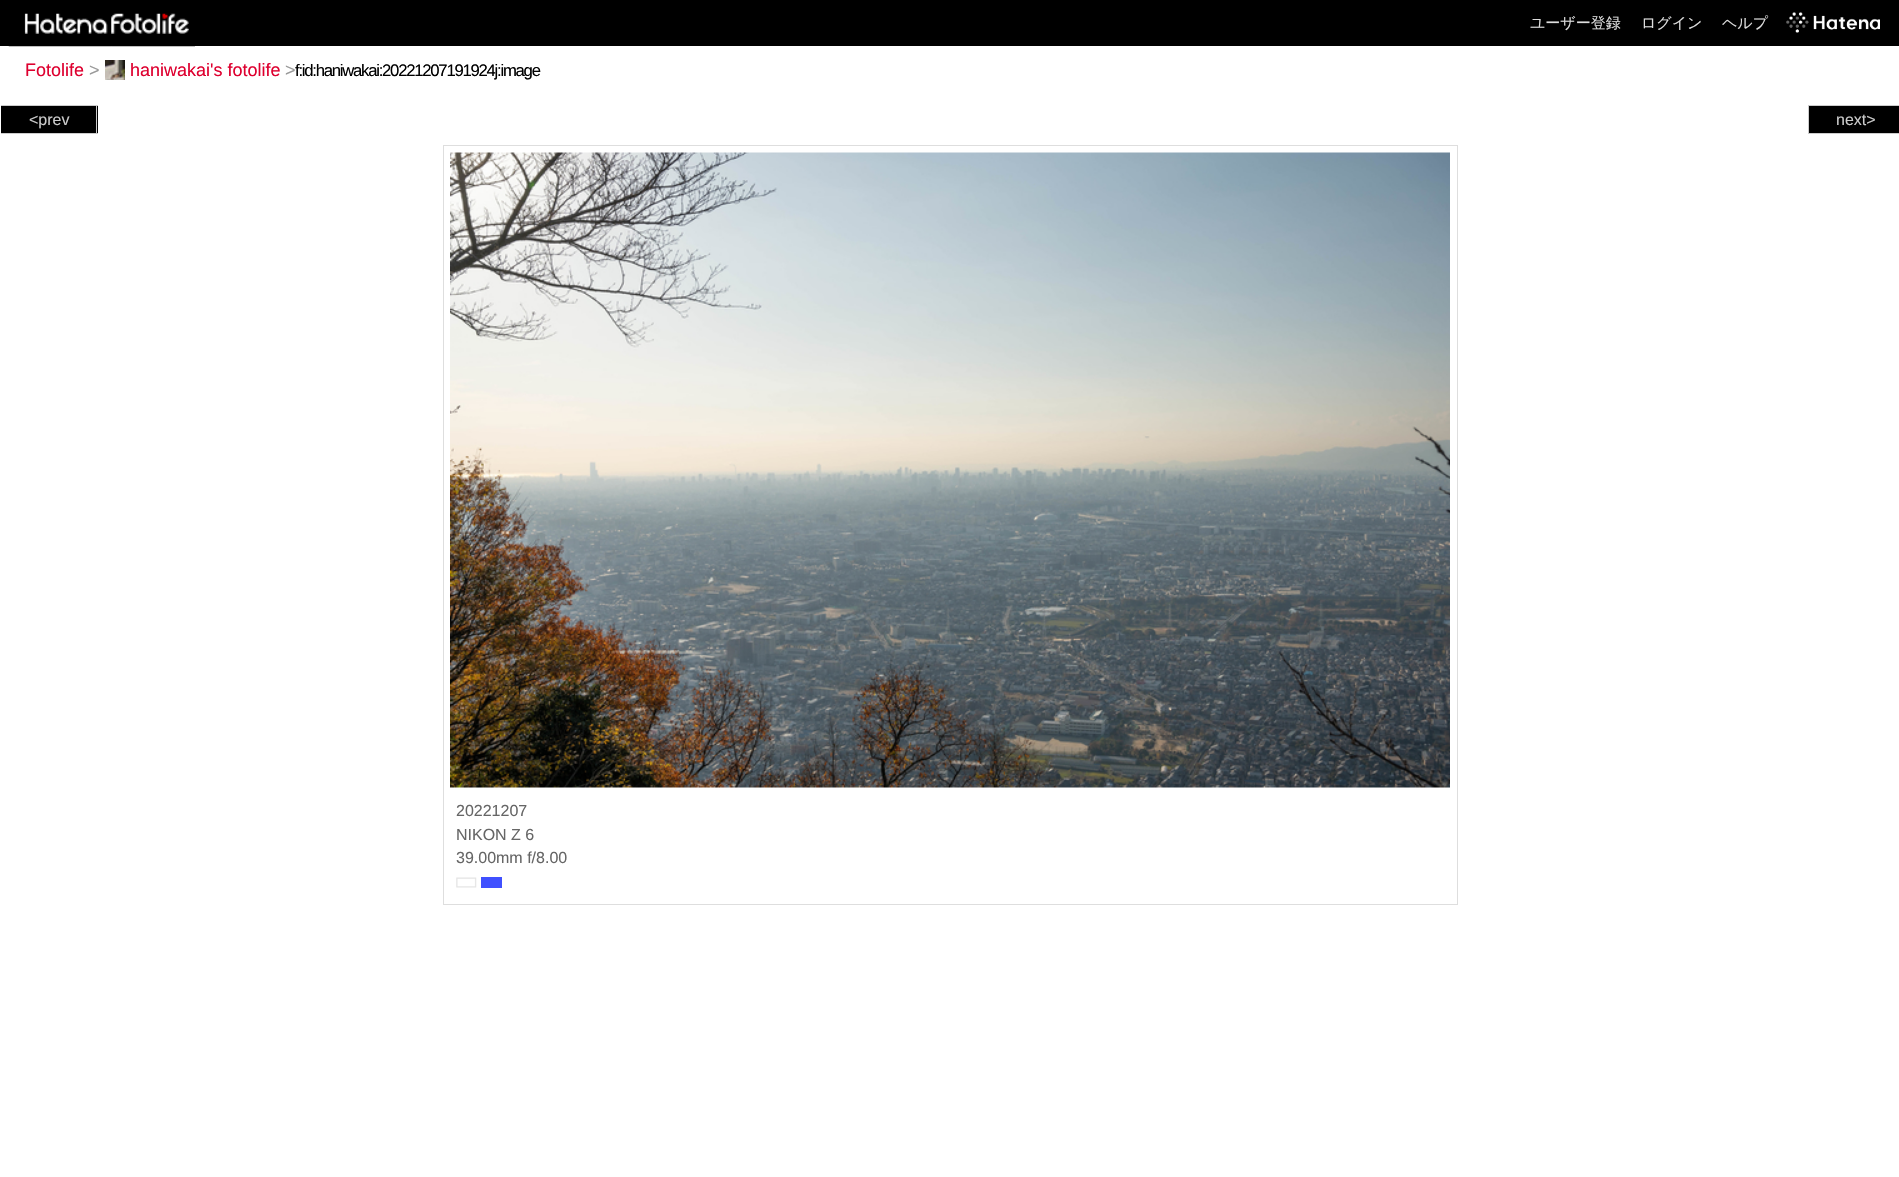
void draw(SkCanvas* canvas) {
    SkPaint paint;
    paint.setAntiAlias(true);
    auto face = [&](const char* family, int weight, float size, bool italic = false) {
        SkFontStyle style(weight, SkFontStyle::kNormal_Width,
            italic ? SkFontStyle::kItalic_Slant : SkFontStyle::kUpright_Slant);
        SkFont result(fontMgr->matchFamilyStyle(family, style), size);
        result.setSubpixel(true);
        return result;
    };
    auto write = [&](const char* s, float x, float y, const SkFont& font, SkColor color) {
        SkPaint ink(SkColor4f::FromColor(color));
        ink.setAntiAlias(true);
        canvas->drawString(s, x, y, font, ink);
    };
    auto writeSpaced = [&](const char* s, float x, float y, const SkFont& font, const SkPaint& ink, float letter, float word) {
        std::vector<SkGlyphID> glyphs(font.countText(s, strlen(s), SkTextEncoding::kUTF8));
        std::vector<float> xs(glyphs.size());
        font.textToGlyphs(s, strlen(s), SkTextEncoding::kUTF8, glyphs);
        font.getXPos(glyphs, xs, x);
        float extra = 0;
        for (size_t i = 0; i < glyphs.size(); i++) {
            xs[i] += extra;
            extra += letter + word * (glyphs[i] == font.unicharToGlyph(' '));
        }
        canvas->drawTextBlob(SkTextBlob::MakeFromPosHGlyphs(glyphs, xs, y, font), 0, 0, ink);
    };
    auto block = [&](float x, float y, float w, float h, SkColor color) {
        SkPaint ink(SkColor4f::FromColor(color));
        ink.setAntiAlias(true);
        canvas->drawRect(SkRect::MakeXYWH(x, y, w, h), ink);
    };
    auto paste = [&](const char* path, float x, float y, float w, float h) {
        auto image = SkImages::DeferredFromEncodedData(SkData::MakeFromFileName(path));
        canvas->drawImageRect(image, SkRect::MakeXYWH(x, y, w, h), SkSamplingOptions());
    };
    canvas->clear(SK_ColorWHITE);
    block(0, 0, 1899, 46, SK_ColorBLACK);
    paste("pic1.png", 8, 13, 104, 34);
    paste("pic2.png", 111, 13, 84, 34);
    auto kFont1 = face("WenQuanYi Zen Hei", 500, 15);
    write("ユーザー登録", 1530, 28, kFont1, SkColorSetRGB(221, 221, 221));
    write("ログイン", 1641, 28, kFont1, SkColorSetRGB(221, 221, 221));
    write("ヘルプ", 1722, 28, kFont1, SkColorSetRGB(221, 221, 221));
    paste("pic3.png", 1786, 12, 94, 21);
    auto kFont2 = face("Liberation Sans", 400, 18);
    write("Fotolife", 25, 76, kFont2, SkColorSetRGB(222, 0, 47));
    write(">", 89, 76, kFont2, SkColorSetRGB(153, 153, 153));
    paste("pic4.png", 105, 60, 20, 20);
    write("haniwakai's fotolife", 130, 76, kFont2, SkColorSetRGB(222, 0, 47));
    write(">", 285, 76, kFont2, SkColorSetRGB(153, 153, 153));
    auto kFont3 = face("Liberation Sans", 400, 16.7f);
    paint.setColor(SK_ColorBLACK);
    writeSpaced("f:id:haniwakai:20221207191924j:image", 295, 76, kFont3, paint, -1.25f, 0);
    block(1, 106, 97, 27, SK_ColorBLACK);
    block(1, 105, 97, 1, SkColorSetRGB(204, 204, 204));
    block(96, 105, 1, 29, SkColorSetRGB(204, 204, 204));
    block(1, 133, 97, 1, SkColorSetRGB(204, 204, 204));
    auto kFont4 = face("Liberation Sans", 400, 16);
    write("<prev", 29, 125, kFont4, SkColorSetRGB(204, 204, 204));
    block(1809, 106, 90, 27, SK_ColorBLACK);
    block(1808, 105, 91, 1, SkColorSetRGB(204, 204, 204));
    block(1808, 133, 91, 1, SkColorSetRGB(204, 204, 204));
    block(1808, 105, 1, 29, SkColorSetRGB(204, 204, 204));
    write("next>", 1836, 125, kFont4, SkColorSetRGB(204, 204, 204));
    paint.setStyle(SkPaint::kStroke_Style);
    paint.setStrokeWidth(1);
    paint.setColor(SkColorSetRGB(222, 222, 222));
    canvas->drawRect(SkRect::MakeXYWH(443.5f, 145.5f, 1014, 759), paint);
    paste("pic5.png", 450, 152, 1000, 636);
    write("20221207", 456, 816, kFont4, SkColorSetRGB(102, 102, 102));
    write("NIKON Z 6", 456, 840, kFont4, SkColorSetRGB(102, 102, 102));
    write("39.00mm f/8.00", 456, 863, kFont4, SkColorSetRGB(102, 102, 102));
    paste("pic6.png", 456, 877, 21, 11);
    block(481, 877, 21, 11, SkColorSetRGB(64, 80, 255));
}
